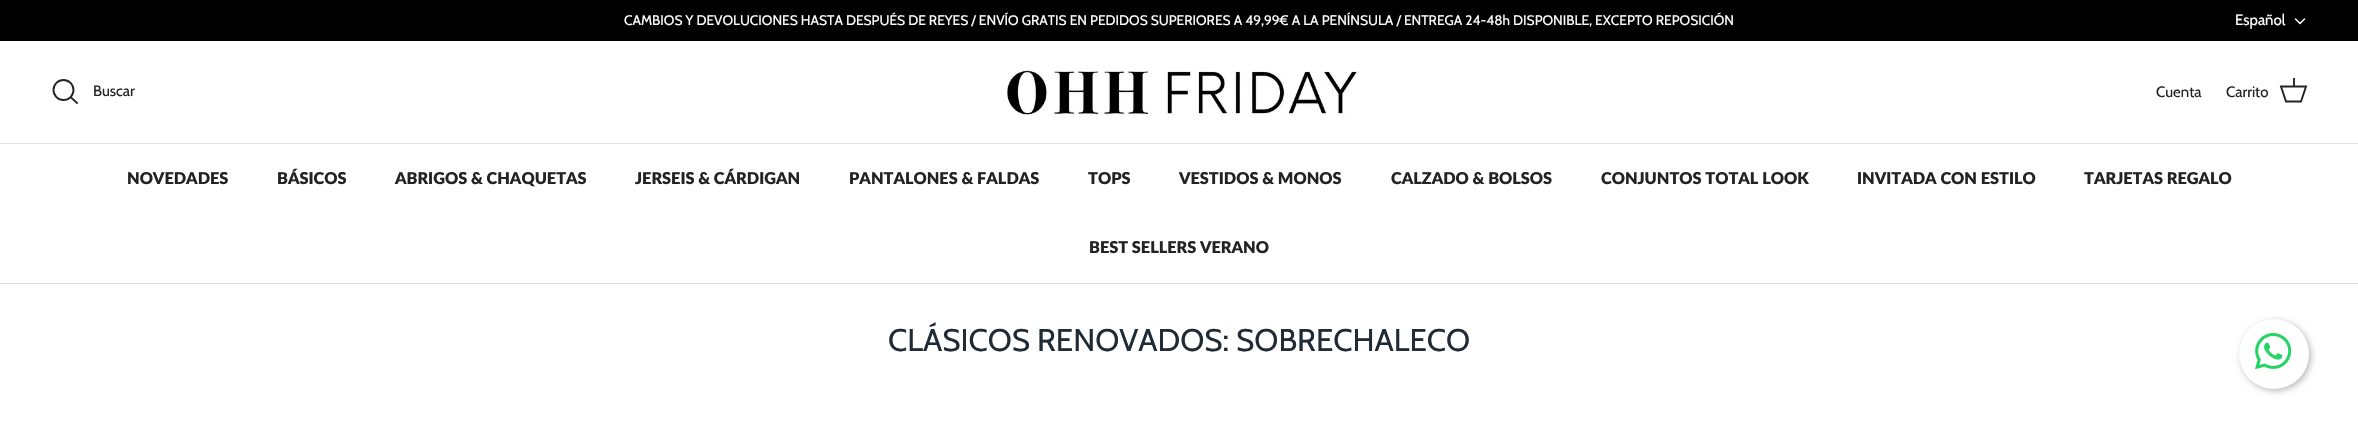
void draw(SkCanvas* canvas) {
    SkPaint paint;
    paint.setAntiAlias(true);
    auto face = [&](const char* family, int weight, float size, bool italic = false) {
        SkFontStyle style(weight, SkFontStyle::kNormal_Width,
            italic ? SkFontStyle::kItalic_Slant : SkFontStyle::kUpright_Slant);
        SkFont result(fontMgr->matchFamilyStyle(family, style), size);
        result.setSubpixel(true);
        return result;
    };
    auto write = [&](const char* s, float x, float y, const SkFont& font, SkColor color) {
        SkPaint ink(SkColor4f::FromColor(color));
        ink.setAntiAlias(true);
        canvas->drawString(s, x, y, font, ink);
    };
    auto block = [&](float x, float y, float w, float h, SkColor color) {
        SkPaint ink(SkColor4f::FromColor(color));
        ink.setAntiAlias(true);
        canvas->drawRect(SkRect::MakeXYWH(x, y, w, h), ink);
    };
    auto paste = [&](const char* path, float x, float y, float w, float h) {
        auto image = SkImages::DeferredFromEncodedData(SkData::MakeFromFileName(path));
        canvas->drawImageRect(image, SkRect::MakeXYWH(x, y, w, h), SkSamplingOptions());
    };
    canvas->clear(SK_ColorWHITE);
    block(0, 0, 2358, 41, SK_ColorBLACK);
    auto kFont1 = face("Cabin", 400, 13.75f);
    write("CAMBIOS Y DEVOLUCIONES HASTA DESPUÉS DE REYES / ENVÍO GRATIS EN PEDIDOS SUPERIORES A 49,99€ A LA PENÍNSULA / ENTREGA 24-48h DISPONIBLE, EXCEPTO REPOSICIÓN", 624, 25, kFont1, SK_ColorWHITE);
    auto kFont2 = face("Cabin", 400, 15);
    write("Español", 2235, 25, kFont2, SK_ColorWHITE);
    paint.setStyle(SkPaint::kStroke_Style);
    paint.setStrokeWidth(1.5f);
    paint.setStrokeCap(SkPaint::kRound_Cap);
    paint.setStrokeJoin(SkPaint::kRound_Join);
    paint.setColor(SK_ColorWHITE);
    canvas->drawPath(SkPathBuilder().moveTo(2295.5f, 19).lineTo(2300, 23.5f).lineTo(2304.5f, 19).detach(), paint);
    block(0, 143, 2358, 1, SkColorSetRGB(223, 227, 232));
    paint.setStrokeWidth(1.9f);
    paint.setStrokeCap(SkPaint::kButt_Cap);
    paint.setStrokeJoin(SkPaint::kMiter_Join);
    paint.setColor(SkColorSetRGB(35, 35, 35));
    canvas->drawCircle(63.5f, 90, 10, paint);
    write("Buscar", 93, 96, kFont2, SkColorSetRGB(35, 35, 35));
    paint.setStrokeCap(SkPaint::kSquare_Cap);
    canvas->drawPath(SkPathBuilder().moveTo(71, 97.5f).lineTo(77, 103).detach(), paint);
    paste("pic1.png", 1007, 69, 352, 47);
    write("Cuenta", 2156, 97, kFont2, SkColorSetRGB(35, 35, 35));
    write("Carrito", 2226, 97, kFont2, SkColorSetRGB(35, 35, 35));
    paint.setStrokeCap(SkPaint::kButt_Cap);
    canvas->drawPath(SkPathBuilder().moveTo(2281, 86.5f).lineTo(2306, 86.5f).lineTo(2301, 101.5f).lineTo(2286, 101.5f).close().detach(), paint);
    block(2293, 78, 2, 9, SkColorSetARGB(242, 35, 35, 35));
    block(0, 283, 2358, 1, SkColorSetRGB(223, 227, 232));
    auto kFont3 = face("Lato", 800, 16.25f);
    write("NOVEDADES", 127, 184, kFont3, SkColorSetRGB(35, 35, 35));
    write("BÁSICOS", 277, 184, kFont3, SkColorSetRGB(35, 35, 35));
    write("ABRIGOS & CHAQUETAS", 395, 184, kFont3, SkColorSetRGB(35, 35, 35));
    write("JERSEIS & CÁRDIGAN", 635, 184, kFont3, SkColorSetRGB(35, 35, 35));
    write("PANTALONES & FALDAS", 849, 184, kFont3, SkColorSetRGB(35, 35, 35));
    write("TOPS", 1088, 184, kFont3, SkColorSetRGB(35, 35, 35));
    write("VESTIDOS & MONOS", 1179, 184, kFont3, SkColorSetRGB(35, 35, 35));
    write("CALZADO & BOLSOS", 1391, 184, kFont3, SkColorSetRGB(35, 35, 35));
    write("CONJUNTOS TOTAL LOOK", 1601, 184, kFont3, SkColorSetRGB(35, 35, 35));
    write("INVITADA CON ESTILO", 1857, 184, kFont3, SkColorSetRGB(35, 35, 35));
    write("TARJETAS REGALO", 2084, 184, kFont3, SkColorSetRGB(35, 35, 35));
    write("BEST SELLERS VERANO", 1089, 253, kFont3, SkColorSetRGB(35, 35, 35));
    auto kFont4 = face("Cabin", 400, 31.25f);
    write("CLÁSICOS RENOVADOS: SOBRECHALECO", 888, 351, kFont4, SkColorSetRGB(33, 43, 54));
    paint.setStyle(SkPaint::kFill_Style);
    paint.setColor(SkColorSetARGB(69, 0, 0, 0));
    paint.setMaskFilter(SkMaskFilter::MakeBlur(kNormal_SkBlurStyle, 3));
    canvas->drawRoundRect(SkRect::MakeXYWH(2241, 321, 70, 70), 35, 35, paint);
    paint.setMaskFilter(nullptr);
    paint.setColor(SK_ColorWHITE);
    canvas->drawCircle(2274, 354, 35, paint);
    paste("pic2.png", 2255, 333, 36, 36);
}
